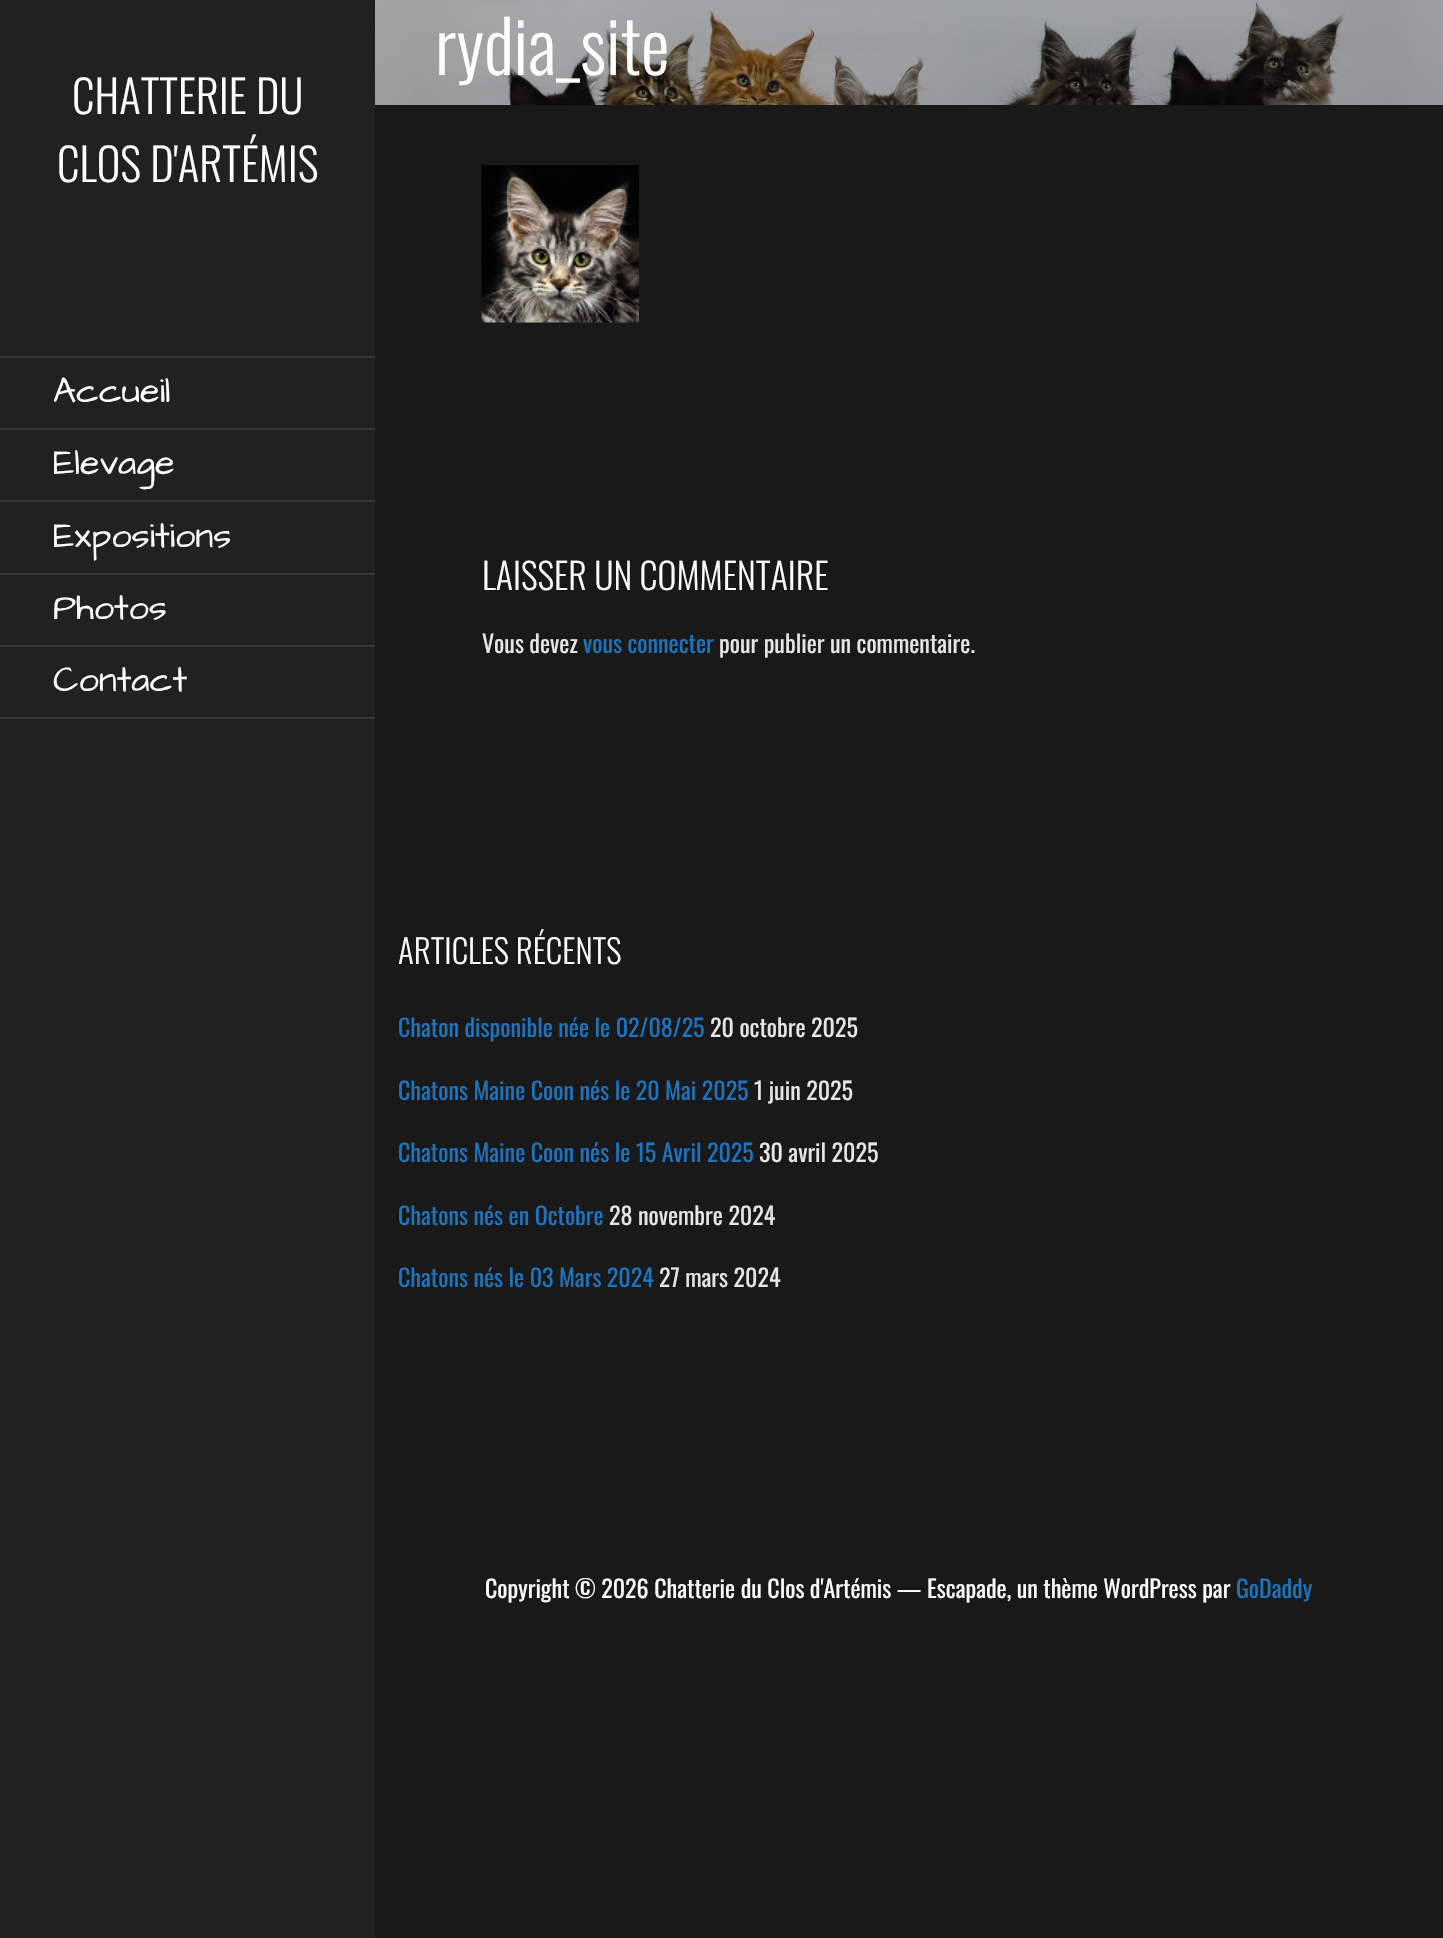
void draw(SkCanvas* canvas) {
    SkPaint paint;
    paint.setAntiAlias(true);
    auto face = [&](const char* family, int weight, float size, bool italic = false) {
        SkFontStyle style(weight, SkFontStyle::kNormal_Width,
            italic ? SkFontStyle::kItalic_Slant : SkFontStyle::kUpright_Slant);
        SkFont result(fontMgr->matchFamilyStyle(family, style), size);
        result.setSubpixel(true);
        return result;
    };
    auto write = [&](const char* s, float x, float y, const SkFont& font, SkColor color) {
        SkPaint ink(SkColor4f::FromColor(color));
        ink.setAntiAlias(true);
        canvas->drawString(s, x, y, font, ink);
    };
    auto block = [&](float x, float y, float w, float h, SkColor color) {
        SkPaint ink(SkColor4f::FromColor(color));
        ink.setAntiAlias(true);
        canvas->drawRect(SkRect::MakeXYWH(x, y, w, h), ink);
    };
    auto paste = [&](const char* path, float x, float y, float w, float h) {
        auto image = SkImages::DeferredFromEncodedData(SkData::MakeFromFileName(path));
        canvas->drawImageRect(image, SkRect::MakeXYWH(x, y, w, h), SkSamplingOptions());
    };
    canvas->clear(SkColorSetRGB(25, 25, 25));
    paste("pic1.png", 375, 0, 1068, 105);
    auto kFont1 = face("Oswald", 300, 72);
    write("rydia_site", 435, 75, kFont1, SK_ColorWHITE);
    block(0, 0, 375, 1938, SkColorSetRGB(33, 33, 33));
    auto kFont2 = face("Oswald", 300, 45);
    write("CHATTERIE DU", 72, 114, kFont2, SK_ColorWHITE);
    write("CLOS D'ARTÉMIS", 57, 182, kFont2, SK_ColorWHITE);
    block(0, 356, 375, 2, SkColorSetRGB(55, 55, 55));
    block(0, 428, 375, 2, SkColorSetRGB(55, 55, 55));
    auto kFont3 = face("Architects Daughter", 400, 36);
    write("Accueil", 53, 402, kFont3, SK_ColorWHITE);
    block(0, 500, 375, 2, SkColorSetRGB(55, 55, 55));
    write("Elevage", 53, 474, kFont3, SK_ColorWHITE);
    block(0, 573, 375, 2, SkColorSetRGB(55, 55, 55));
    write("Expositions", 53, 547, kFont3, SK_ColorWHITE);
    block(0, 645, 375, 2, SkColorSetRGB(55, 55, 55));
    write("Photos", 53, 619, kFont3, SK_ColorWHITE);
    block(0, 717, 375, 2, SkColorSetRGB(55, 55, 55));
    write("Contact", 53, 691, kFont3, SK_ColorWHITE);
    paste("pic2.png", 481, 165, 158, 158);
    auto kFont4 = face("Oswald", 300, 36);
    write("LAISSER UN COMMENTAIRE", 482, 590, kFont4, SK_ColorWHITE);
    auto kFont5 = face("Oswald", 400, 24);
    write("Vous devez", 482, 653, kFont5, SkColorSetRGB(229, 229, 229));
    write("vous connecter", 583, 653, kFont5, SkColorSetRGB(30, 115, 190));
    write("pour publier un commentaire.", 719, 653, kFont5, SkColorSetRGB(229, 229, 229));
    auto kFont6 = face("Oswald", 300, 33);
    write("ARTICLES RÉCENTS", 398, 964, kFont6, SK_ColorWHITE);
    write("Chaton disponible née le 02/08/25", 398, 1037, kFont5, SkColorSetRGB(30, 115, 190));
    write("20 octobre 2025", 710, 1037, kFont5, SkColorSetRGB(229, 229, 229));
    write("Chatons Maine Coon nés le 20 Mai 2025", 398, 1100, kFont5, SkColorSetRGB(30, 115, 190));
    write("1 juin 2025", 754, 1100, kFont5, SkColorSetRGB(229, 229, 229));
    write("Chatons Maine Coon nés le 15 Avril 2025", 398, 1162, kFont5, SkColorSetRGB(30, 115, 190));
    write("30 avril 2025", 759, 1162, kFont5, SkColorSetRGB(229, 229, 229));
    write("Chatons nés en Octobre", 398, 1225, kFont5, SkColorSetRGB(30, 115, 190));
    write("28 novembre 2024", 609, 1225, kFont5, SkColorSetRGB(229, 229, 229));
    write("Chatons nés le 03 Mars 2024", 398, 1287, kFont5, SkColorSetRGB(30, 115, 190));
    write("27 mars 2024", 659, 1287, kFont5, SkColorSetRGB(229, 229, 229));
    write("Copyright © 2026 Chatterie du Clos d'Artémis — Escapade, un thème WordPress par", 485, 1598, kFont5, SK_ColorWHITE);
    write("GoDaddy", 1236, 1598, kFont5, SkColorSetRGB(30, 115, 190));
}
